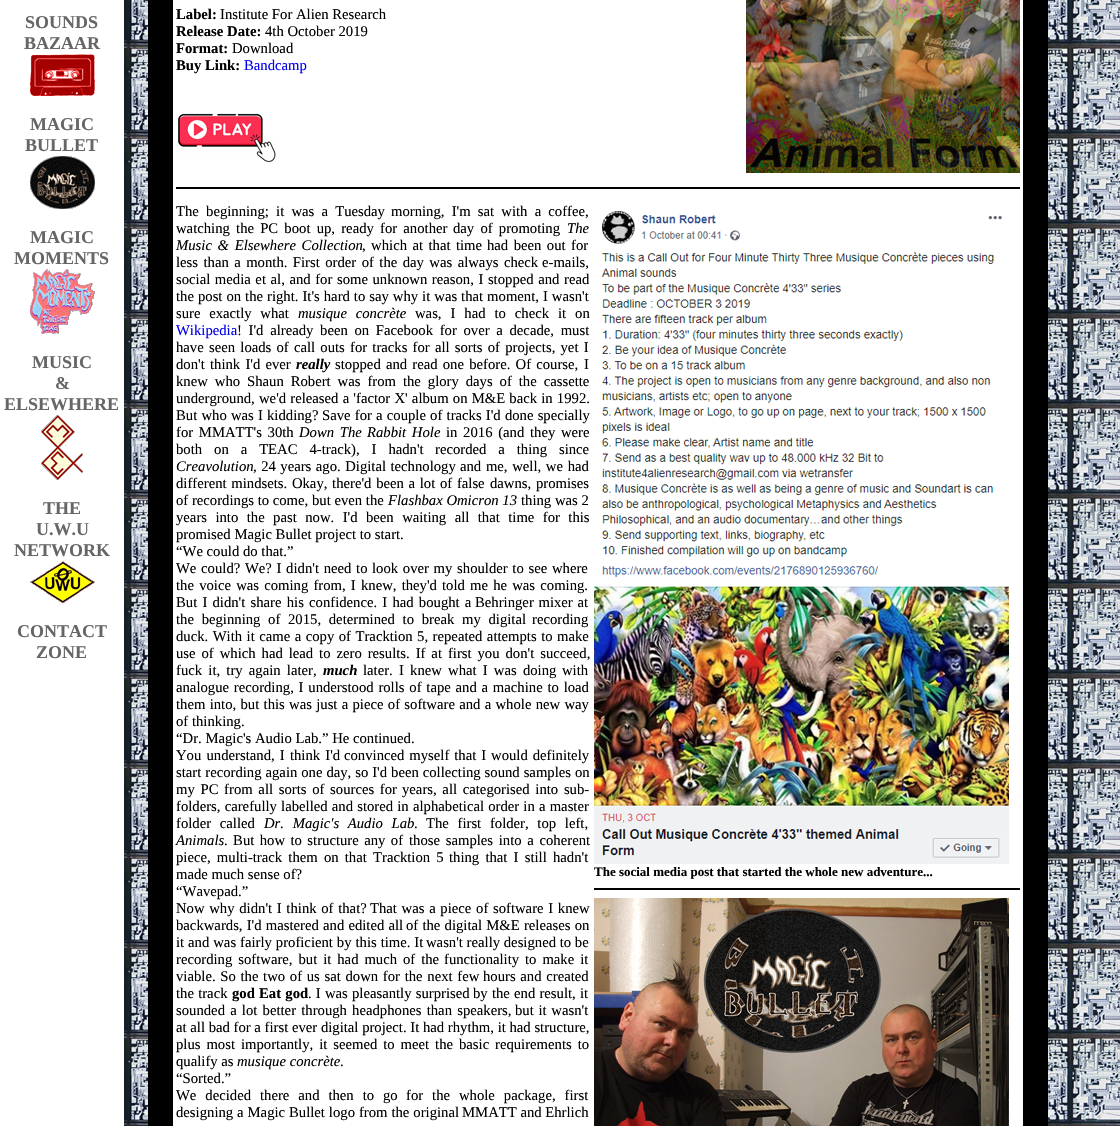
void draw(SkCanvas* canvas) {
    SkPaint paint;
    paint.setAntiAlias(true);
    auto face = [&](const char* family, int weight, float size, bool italic = false) {
        SkFontStyle style(weight, SkFontStyle::kNormal_Width,
            italic ? SkFontStyle::kItalic_Slant : SkFontStyle::kUpright_Slant);
        SkFont result(fontMgr->matchFamilyStyle(family, style), size);
        result.setSubpixel(true);
        return result;
    };
    auto write = [&](const char* s, float x, float y, const SkFont& font, SkColor color) {
        SkPaint ink(SkColor4f::FromColor(color));
        ink.setAntiAlias(true);
        canvas->drawString(s, x, y, font, ink);
    };
    auto writeSpaced = [&](const char* s, float x, float y, const SkFont& font, const SkPaint& ink, float letter, float word) {
        std::vector<SkGlyphID> glyphs(font.countText(s, strlen(s), SkTextEncoding::kUTF8));
        std::vector<float> xs(glyphs.size());
        font.textToGlyphs(s, strlen(s), SkTextEncoding::kUTF8, glyphs);
        font.getXPos(glyphs, xs, x);
        float extra = 0;
        for (size_t i = 0; i < glyphs.size(); i++) {
            xs[i] += extra;
            extra += letter + word * (glyphs[i] == font.unicharToGlyph(' '));
        }
        canvas->drawTextBlob(SkTextBlob::MakeFromPosHGlyphs(glyphs, xs, y, font), 0, 0, ink);
    };
    auto block = [&](float x, float y, float w, float h, SkColor color) {
        SkPaint ink(SkColor4f::FromColor(color));
        ink.setAntiAlias(true);
        canvas->drawRect(SkRect::MakeXYWH(x, y, w, h), ink);
    };
    auto paste = [&](const char* path, float x, float y, float w, float h) {
        auto image = SkImages::DeferredFromEncodedData(SkData::MakeFromFileName(path));
        canvas->drawImageRect(image, SkRect::MakeXYWH(x, y, w, h), SkSamplingOptions());
    };
    canvas->clear(SK_ColorWHITE);
    paste("pic1.png", 124, 0, 996, 1126);
    auto kFont1 = face("Liberation Serif", 700, 18);
    write("SOUNDS", 25, 28, kFont1, SkColorSetRGB(102, 102, 102));
    write("BAZAAR", 24, 49, kFont1, SkColorSetRGB(102, 102, 102));
    paste("pic2.png", 30, 54, 65, 42);
    write("MAGIC", 30, 130, kFont1, SkColorSetRGB(102, 102, 102));
    write("BULLET", 25, 151, kFont1, SkColorSetRGB(102, 102, 102));
    paste("pic3.png", 30, 156, 65, 53);
    write("MAGIC", 30, 243, kFont1, SkColorSetRGB(102, 102, 102));
    write("MOMENTS", 14, 264, kFont1, SkColorSetRGB(102, 102, 102));
    paste("pic4.png", 30, 269, 65, 65);
    write("MUSIC", 32, 368, kFont1, SkColorSetRGB(102, 102, 102));
    write("&", 55, 389, kFont1, SkColorSetRGB(102, 102, 102));
    write("ELSEWHERE", 4, 410, kFont1, SkColorSetRGB(102, 102, 102));
    paste("pic5.png", 41, 415, 42, 65);
    write("THE", 43, 514, kFont1, SkColorSetRGB(102, 102, 102));
    write("U.W.U", 36, 535, kFont1, SkColorSetRGB(102, 102, 102));
    write("NETWORK", 14, 556, kFont1, SkColorSetRGB(102, 102, 102));
    paste("pic6.png", 30, 561, 65, 42);
    write("CONTACT", 17, 637, kFont1, SkColorSetRGB(102, 102, 102));
    write("ZONE", 36, 658, kFont1, SkColorSetRGB(102, 102, 102));
    block(148, 0, 25, 1126, SK_ColorBLACK);
    block(173, 0, 850, 200, SK_ColorWHITE);
    auto kFont2 = face("Liberation Serif", 700, 14.7f);
    write("Label:", 176, 19, kFont2, SK_ColorBLACK);
    auto kFont3 = face("Liberation Serif", 400, 14.7f);
    write("Institute For Alien Research", 220, 19, kFont3, SK_ColorBLACK);
    write("Release Date:", 176, 36, kFont2, SK_ColorBLACK);
    write("4th October 2019", 265, 36, kFont3, SK_ColorBLACK);
    write("Format:", 176, 53, kFont2, SK_ColorBLACK);
    write("Download", 232, 53, kFont3, SK_ColorBLACK);
    write("Buy Link:", 176, 70, kFont2, SK_ColorBLACK);
    write("Bandcamp", 244, 70, kFont3, SkColorSetRGB(0, 0, 238));
    paste("pic7.png", 178, 112, 98, 51);
    paste("pic8.png", 746, 0, 274, 173);
    block(1023, 0, 25, 1126, SK_ColorBLACK);
    block(176, 187, 844, 2, SK_ColorBLACK);
    block(173, 200, 850, 926, SK_ColorWHITE);
    paint.setColor(SK_ColorBLACK);
    writeSpaced("The beginning; it was a Tuesday", 176, 216, kFont3, paint, 0, 3.5f);
    writeSpaced("morning, I'm sat with a coffee,", 391, 216, kFont3, paint, 0, 3.5f);
    writeSpaced("watching the PC boot up, ready for another", 176, 233, kFont3, paint, 0, 2.5f);
    writeSpaced("day of promoting", 453, 233, kFont3, paint, 0, 2.5f);
    auto kFont4 = face("Liberation Serif", 400, 14.7f, true);
    write("The", 567, 233, kFont4, SK_ColorBLACK);
    writeSpaced("Music & Elsewhere Collection", 176, 250, kFont4, paint, 0, 2);
    writeSpaced(", which at that time", 362, 250, kFont3, paint, 0, 1.75f);
    writeSpaced("had been out for", 487, 250, kFont3, paint, 0, 1.75f);
    writeSpaced("less than a month. First order of the day was always check", 176, 267, kFont3, paint, 0, 1.75f);
    write("e-mails,", 542, 267, kFont3, SK_ColorBLACK);
    writeSpaced("social media et al, and for some unknown reason, I stopped and read", 176, 284, kFont3, paint, 0, 0.9f);
    writeSpaced("the post on the right. It's hard to say why it was that moment, I wasn't", 176, 301, kFont3, paint, 0, 0.3f);
    writeSpaced("sure exactly what", 176, 318, kFont3, paint, 0, 5);
    writeSpaced("musique concrète", 298, 318, kFont4, paint, 0, 5);
    writeSpaced("was, I had to check it on", 415, 318, kFont3, paint, 0, 5.25f);
    write("Wikipedia", 176, 335, kFont3, SkColorSetRGB(0, 0, 238));
    writeSpaced("! I'd already been on Facebook for over a decade, must", 237, 335, kFont3, paint, 0, 3);
    write("have", 176, 352, kFont3, SK_ColorBLACK);
    writeSpaced("seen loads of call outs for tracks for all sorts of projects, yet I", 209, 352, kFont3, paint, 0, 1.5f);
    write("don't", 176, 369, kFont3, SK_ColorBLACK);
    writeSpaced("think I'd ever", 210, 369, kFont3, paint, 0, 1.5f);
    auto kFont5 = face("Liberation Serif", 700, 14.7f, true);
    write("really", 296, 369, kFont5, SK_ColorBLACK);
    writeSpaced("stopped and read one before. Of course,", 335, 369, kFont3, paint, 0, 1.5f);
    write("I", 584, 369, kFont3, SK_ColorBLACK);
    writeSpaced("knew who Shaun Robert was from the glory days of the cassette", 176, 386, kFont3, paint, 0, 3.25f);
    write("underground,", 176, 403, kFont3, SK_ColorBLACK);
    writeSpaced("we'd released a 'factor X' album on M&E back in 1992.", 259, 403, kFont3, paint, 0, 0.5f);
    writeSpaced("But who was I kidding?", 176, 420, kFont3, paint, 0, 0.5f);
    writeSpaced("Save for a couple of tracks I'd done specially", 322, 420, kFont3, paint, 0, 0.5f);
    writeSpaced("for MMATT's 30th", 176, 437, kFont3, paint, 0, 2);
    writeSpaced("Down The", 299, 437, kFont4, paint, 0, 2);
    writeSpaced("Rabbit Hole", 367, 437, kFont4, paint, 0, 2);
    writeSpaced("in 2016 (and they were", 446, 437, kFont3, paint, 0, 2);
    writeSpaced("both on a TEAC 4-track), I hadn't", 176, 454, kFont3, paint, 0, 8.25f);
    writeSpaced("recorded a thing since", 435, 454, kFont3, paint, 0, 8.25f);
    write("Creavolution", 176, 471, kFont4, SK_ColorBLACK);
    writeSpaced(", 24 years ago. Digital technology", 253, 471, kFont3, paint, 0, 0.8f);
    writeSpaced("and me, well, we had", 460, 471, kFont3, paint, 0, 1);
    writeSpaced("different mindsets. Okay, there'd been a lot of false", 176, 488, kFont3, paint, 0, 1);
    writeSpaced("dawns, promises", 490, 488, kFont3, paint, 0, 1);
    write("of recordings to come, but even the", 176, 505, kFont3, SK_ColorBLACK);
    write("Flashbax Omicron 13", 388, 505, kFont4, SK_ColorBLACK);
    write("thing was 2", 521, 505, kFont3, SK_ColorBLACK);
    writeSpaced("years into the past now. I'd been waiting all that time for this", 176, 522, kFont3, paint, 0, 4.75f);
    write("promised Magic Bullet project to start.", 176, 539, kFont3, SK_ColorBLACK);
    write("“We could do that.”", 176, 556, kFont3, SK_ColorBLACK);
    writeSpaced("We could? We? I didn't need to", 176, 573, kFont3, paint, 0, 1);
    writeSpaced("look over my shoulder to see where", 372, 573, kFont3, paint, 0, 1);
    writeSpaced("the voice was coming from, I knew, they'd", 176, 590, kFont3, paint, 0, 1.5f);
    writeSpaced("told me he was coming.", 442, 590, kFont3, paint, 0, 1.5f);
    writeSpaced("But I didn't share his confidence. I had bought a", 176, 607, kFont3, paint, 0, 1.5f);
    writeSpaced("Behringer mixer at", 475, 607, kFont3, paint, 0, 1);
    writeSpaced("the beginning of 2015, determined to break my digital", 176, 624, kFont3, paint, 0, 4);
    write("recording", 532, 624, kFont3, SK_ColorBLACK);
    writeSpaced("duck. With it came a copy of Tracktion 5, repeated attempts to", 176, 641, kFont3, paint, 0, 0.8f);
    write("make", 557, 641, kFont3, SK_ColorBLACK);
    writeSpaced("use of which had lead to zero results. If at first you don't succeed,", 176, 658, kFont3, paint, 0, 2.25f);
    writeSpaced("fuck it, try again later,", 176, 675, kFont3, paint, 0, 2.5f);
    write("much", 323, 675, kFont5, SK_ColorBLACK);
    writeSpaced("later. I knew what I was doing", 363, 675, kFont3, paint, 0, 2.5f);
    write("with", 562, 675, kFont3, SK_ColorBLACK);
    writeSpaced("analogue recording, I understood rolls of tape and a machine to load", 176, 692, kFont3, paint, 0, 1.1f);
    writeSpaced("them into, but this was just a piece of software and a whole new way", 176, 709, kFont3, paint, 0, 0.6f);
    write("of thinking.", 176, 726, kFont3, SK_ColorBLACK);
    write("“Dr. Magic's Audio Lab.” He continued.", 176, 743, kFont3, SK_ColorBLACK);
    writeSpaced("You understand, I think I'd", 176, 760, kFont3, paint, 0, 1.5f);
    writeSpaced("convinced myself that I would definitely", 344, 760, kFont3, paint, 0, 1.25f);
    writeSpaced("start recording again one day, so I'd been collecting sound samples on", 176, 777, kFont3, paint, 0, 0.25f);
    writeSpaced("my PC from all sorts of sources for", 176, 794, kFont3, paint, 0, 2);
    writeSpaced("years, all categorised into sub-", 402, 794, kFont3, paint, 0, 2);
    writeSpaced("folders, carefully labelled and stored in", 176, 811, kFont3, paint, 0, 0.5f);
    writeSpaced("alphabetical order in a master", 413, 811, kFont3, paint, 0, 0.5f);
    writeSpaced("folder called", 176, 828, kFont3, paint, 0, 5);
    writeSpaced("Dr. Magic's Audio Lab", 264, 828, kFont4, paint, 0, 5);
    write(".", 414, 828, kFont3, SK_ColorBLACK);
    writeSpaced("The first folder, top left,", 426, 828, kFont3, paint, 0, 5);
    write("Animals", 176, 845, kFont4, SK_ColorBLACK);
    writeSpaced(". But how to structure any of", 224, 845, kFont3, paint, 0, 1.75f);
    writeSpaced("those samples into a coherent", 409, 845, kFont3, paint, 0, 2);
    writeSpaced("piece, multi-track them on that Tracktion 5", 176, 862, kFont3, paint, 0, 2.5f);
    writeSpaced("thing that I still hadn't", 449, 862, kFont3, paint, 0, 2.5f);
    write("made much sense of?", 176, 879, kFont3, SK_ColorBLACK);
    write("“Wavepad.”", 176, 896, kFont3, SK_ColorBLACK);
    writeSpaced("Now why didn't I think of that?", 176, 913, kFont3, paint, 0, 1);
    writeSpaced("That was a piece of software I knew", 370, 913, kFont3, paint, 0, 1);
    writeSpaced("backwards, I'd mastered and edited all", 176, 930, kFont3, paint, 0, 0.5f);
    writeSpaced("of the digital M&E releases on", 406, 930, kFont3, paint, 0, 0.5f);
    writeSpaced("it and was fairly proficient by this time. It", 176, 947, kFont3, paint, 0, 0.25f);
    write("wasn't really designed to be", 426, 947, kFont3, SK_ColorBLACK);
    writeSpaced("recording software, but it had much of the", 176, 964, kFont3, paint, 0, 2.25f);
    writeSpaced("functionality to make it", 444, 964, kFont3, paint, 0, 2.25f);
    writeSpaced("viable. So the two of us sat down for the next few", 176, 981, kFont3, paint, 0, 1);
    writeSpaced("hours and created", 483, 981, kFont3, paint, 0, 1);
    writeSpaced("the track", 176, 998, kFont3, paint, 0, 0.5f);
    writeSpaced("god Eat god", 232, 998, kFont2, paint, 0, 0.5f);
    writeSpaced(". I was pleasantly surprised", 308, 998, kFont3, paint, 0, 0.5f);
    writeSpaced("by the end result, it", 473, 998, kFont3, paint, 0, 0.5f);
    writeSpaced("sounded a lot better through headphones than speakers,", 176, 1015, kFont3, paint, 0, 1.5f);
    writeSpaced("but it wasn't", 515, 1015, kFont3, paint, 0, 1);
    write("at all bad for a first ever digital project. It had rhythm, it had structure,", 176, 1032, kFont3, SK_ColorBLACK);
    writeSpaced("plus most importantly, it seemed to meet the basic", 176, 1049, kFont3, paint, 0, 2.25f);
    writeSpaced("requirements to", 495, 1049, kFont3, paint, 0, 2.25f);
    write("qualify as", 176, 1066, kFont3, SK_ColorBLACK);
    write("musique concrète", 237, 1066, kFont4, SK_ColorBLACK);
    write(".", 340, 1066, kFont3, SK_ColorBLACK);
    write("“Sorted.”", 176, 1083, kFont3, SK_ColorBLACK);
    writeSpaced("We decided there and then to go", 176, 1100, kFont3, paint, 0, 5.25f);
    writeSpaced("for the whole package, first", 406, 1100, kFont3, paint, 0, 5.25f);
    writeSpaced("designing a Magic Bullet logo from the original", 176, 1117, kFont3, paint, 0, 0.25f);
    write("MMATT and Ehrlich", 462, 1117, kFont3, SK_ColorBLACK);
    paste("pic9.png", 594, 211, 415, 653);
    auto kFont6 = face("Liberation Serif", 700, 13);
    write("The social media post that started the whole new adventure...", 594, 876, kFont6, SK_ColorBLACK);
    block(594, 888, 426, 2, SK_ColorBLACK);
    paste("pic10.png", 594, 898, 415, 228);
}
